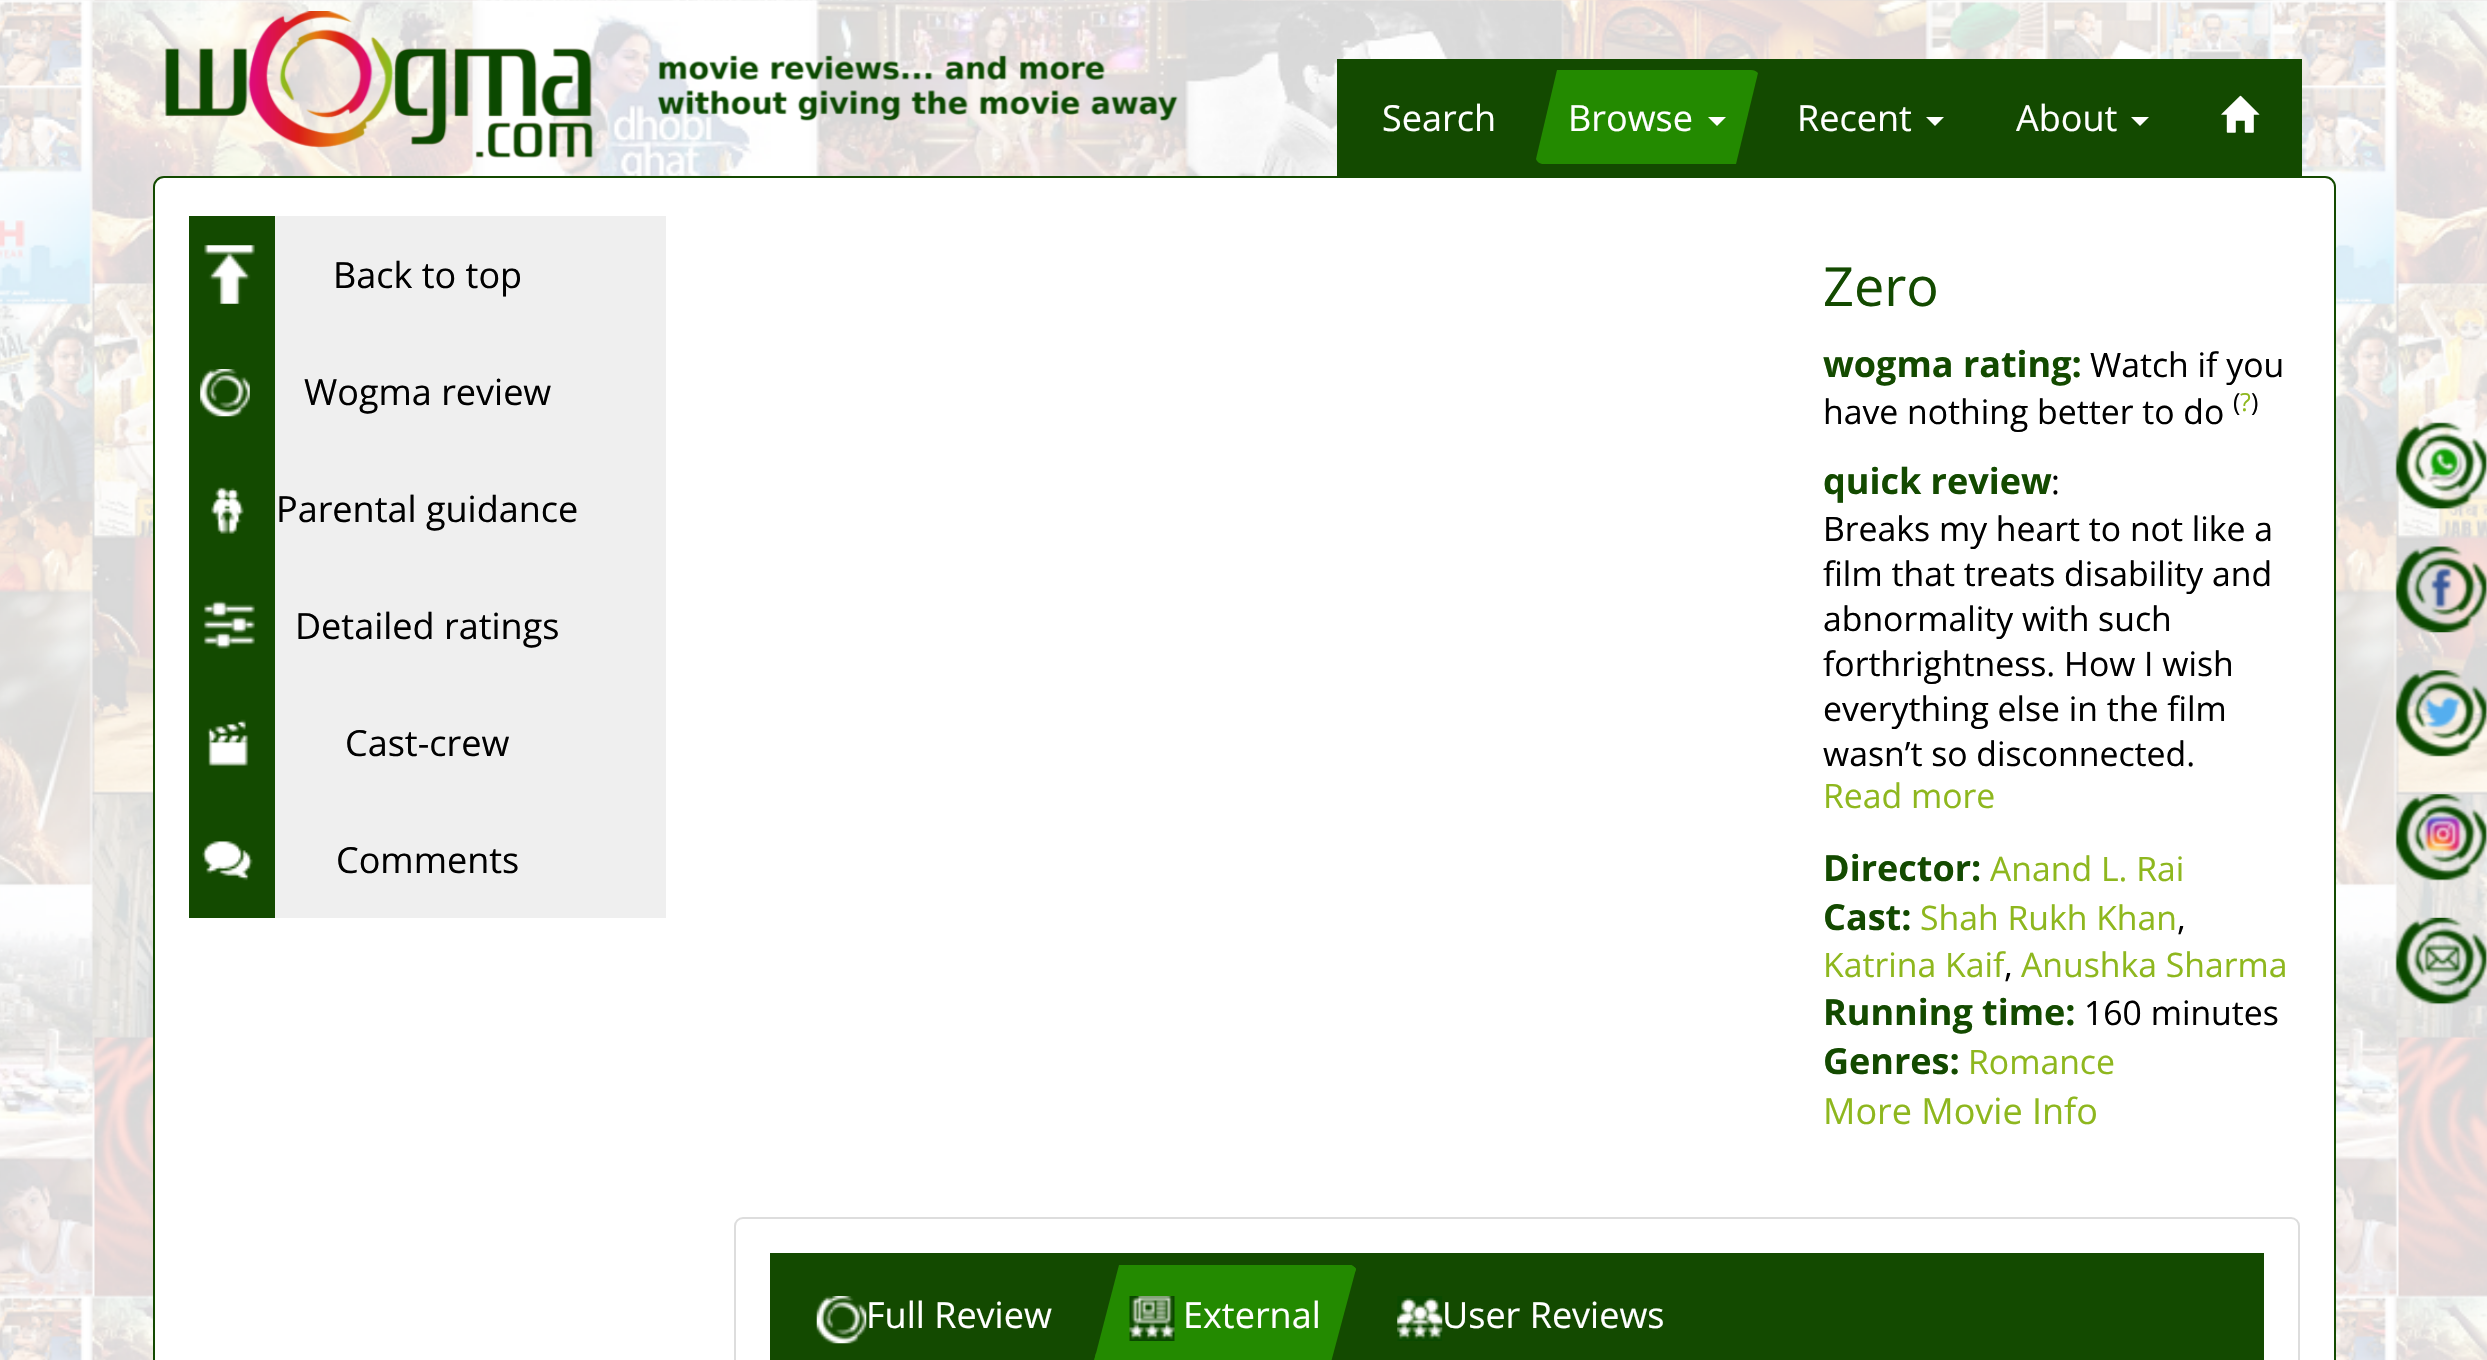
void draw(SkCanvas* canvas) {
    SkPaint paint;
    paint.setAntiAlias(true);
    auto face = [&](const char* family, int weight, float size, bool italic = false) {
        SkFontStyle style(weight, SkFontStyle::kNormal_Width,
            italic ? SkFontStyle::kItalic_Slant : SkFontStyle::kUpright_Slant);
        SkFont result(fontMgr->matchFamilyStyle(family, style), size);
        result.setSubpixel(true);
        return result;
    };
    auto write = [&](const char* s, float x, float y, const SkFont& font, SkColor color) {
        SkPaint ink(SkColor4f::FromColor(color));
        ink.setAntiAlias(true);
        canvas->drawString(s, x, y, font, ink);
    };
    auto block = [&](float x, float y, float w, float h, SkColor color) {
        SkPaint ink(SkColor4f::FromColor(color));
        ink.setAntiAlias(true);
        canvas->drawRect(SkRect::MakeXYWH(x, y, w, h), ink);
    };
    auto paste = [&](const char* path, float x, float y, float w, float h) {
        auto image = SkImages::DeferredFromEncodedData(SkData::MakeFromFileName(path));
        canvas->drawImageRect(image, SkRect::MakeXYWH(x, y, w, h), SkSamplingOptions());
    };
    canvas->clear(SK_ColorWHITE);
    paste("pic1.png", 0, 0, 2487, 1360);
    paste("pic2.png", 165, 11, 1013, 147);
    block(1337, 59, 965, 117, SkColorSetRGB(19, 74, 0));
    auto kFont1 = face("Open Sans", 400, 36);
    write("Search", 1382, 131, kFont1, SK_ColorWHITE);
    paint.setColor(SkColorSetRGB(35, 138, 0));
    canvas->drawPath(SkPathBuilder().moveTo(1536, 159).lineTo(1557, 70).lineTo(1751, 70).cubicTo(1754, 70, 1756, 71, 1758, 73).lineTo(1736, 164).lineTo(1544, 164).cubicTo(1540, 164, 1537, 162, 1536, 159).close().detach(), paint);
    write("Browse", 1568, 131, kFont1, SK_ColorWHITE);
    paint.setColor(SK_ColorWHITE);
    canvas->drawPath(SkPathBuilder().moveTo(1708, 117).lineTo(1726, 117).lineTo(1717, 126).close().detach(), paint);
    write("Recent", 1797, 131, kFont1, SK_ColorWHITE);
    canvas->drawPath(SkPathBuilder().moveTo(1926, 117).lineTo(1944, 117).lineTo(1935, 126).close().detach(), paint);
    write("About", 2016, 131, kFont1, SK_ColorWHITE);
    canvas->drawPath(SkPathBuilder().moveTo(2131, 117).lineTo(2149, 117).lineTo(2140, 126).close().detach(), paint);
    paste("pic3.png", 2221, 95, 39, 38);
    canvas->drawRoundRect(SkRect::MakeXYWH(154, 177, 2181, 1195), 10, 10, paint);
    paint.setStyle(SkPaint::kStroke_Style);
    paint.setStrokeWidth(2);
    paint.setColor(SkColorSetRGB(19, 74, 0));
    canvas->drawRoundRect(SkRect::MakeXYWH(154, 177, 2181, 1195), 10, 10, paint);
    block(189, 216, 86, 702, SkColorSetRGB(19, 74, 0));
    block(275, 216, 391, 702, SkColorSetRGB(239, 239, 239));
    paste("pic4.png", 204, 245, 51, 59);
    write("Back to top", 333, 288, kFont1, SK_ColorBLACK);
    paste("pic5.png", 200, 369, 50, 48);
    write("Wogma review", 304, 405, kFont1, SK_ColorBLACK);
    paste("pic6.png", 211, 487, 33, 47);
    write("Parental guidance", 276, 522, kFont1, SK_ColorBLACK);
    paste("pic7.png", 203, 600, 52, 49);
    write("Detailed ratings", 295, 639, kFont1, SK_ColorBLACK);
    paste("pic8.png", 207, 719, 42, 47);
    write("Cast-crew", 345, 756, kFont1, SK_ColorBLACK);
    paste("pic9.png", 202, 841, 51, 40);
    write("Comments", 336, 873, kFont1, SK_ColorBLACK);
    auto kFont2 = face("Open Sans", 400, 54);
    write("Zero", 1823, 306, kFont2, SkColorSetRGB(19, 74, 0));
    auto kFont3 = face("Open Sans", 700, 36);
    write("wogma rating:", 1823, 377, kFont3, SkColorSetRGB(19, 74, 0));
    auto kFont4 = face("Open Sans", 400, 33.75f);
    write("Watch if you", 2090, 377, kFont4, SK_ColorBLACK);
    write("have nothing better to do", 1823, 424, kFont4, SK_ColorBLACK);
    auto kFont5 = face("Open Sans", 400, 25);
    write("(", 2233, 411, kFont5, SK_ColorBLACK);
    write("?", 2240, 411, kFont5, SkColorSetRGB(142, 183, 30));
    write(")", 2251, 411, kFont5, SK_ColorBLACK);
    write("quick review", 1823, 494, kFont3, SkColorSetRGB(19, 74, 0));
    write(":", 2051, 494, kFont4, SK_ColorBLACK);
    write("Breaks my heart to not like a", 1823, 541, kFont4, SK_ColorBLACK);
    write("film that treats disability and", 1823, 586, kFont4, SK_ColorBLACK);
    write("abnormality with such", 1823, 631, kFont4, SK_ColorBLACK);
    write("forthrightness. How I wish", 1823, 676, kFont4, SK_ColorBLACK);
    write("everything else in the film", 1823, 721, kFont4, SK_ColorBLACK);
    write("wasn’t so disconnected.", 1823, 766, kFont4, SK_ColorBLACK);
    write("Read more", 1823, 808, kFont4, SkColorSetRGB(142, 183, 30));
    write("Director:", 1823, 881, kFont3, SkColorSetRGB(19, 74, 0));
    write("Anand L. Rai", 1990, 881, kFont4, SkColorSetRGB(142, 183, 30));
    write("Cast:", 1823, 930, kFont3, SkColorSetRGB(19, 74, 0));
    write("Shah Rukh Khan", 1920, 930, kFont4, SkColorSetRGB(142, 183, 30));
    write(",", 2177, 930, kFont4, SK_ColorBLACK);
    write("Katrina Kaif", 1823, 977, kFont4, SkColorSetRGB(142, 183, 30));
    write(",", 2004, 977, kFont4, SK_ColorBLACK);
    write("Anushka Sharma", 2021, 977, kFont4, SkColorSetRGB(142, 183, 30));
    write("Running time:", 1823, 1025, kFont3, SkColorSetRGB(19, 74, 0));
    write("160 minutes", 2084, 1025, kFont4, SK_ColorBLACK);
    write("Genres:", 1823, 1074, kFont3, SkColorSetRGB(19, 74, 0));
    write("Romance", 1968, 1074, kFont4, SkColorSetRGB(142, 183, 30));
    write("More Movie Info", 1823, 1124, kFont1, SkColorSetRGB(142, 183, 30));
    paint.setColor(SkColorSetRGB(221, 221, 221));
    canvas->drawRoundRect(SkRect::MakeXYWH(735, 1218, 1564, 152), 8, 8, paint);
    block(770, 1253, 1494, 107, SkColorSetRGB(19, 74, 0));
    paste("pic10.png", 816, 1296, 51, 48);
    write("Full Review", 866, 1328, kFont1, SK_ColorWHITE);
    paint.setStyle(SkPaint::kFill_Style);
    paint.setColor(SkColorSetRGB(35, 138, 0));
    canvas->drawPath(SkPathBuilder().moveTo(1119, 1265).lineTo(1351, 1265).cubicTo(1353, 1266, 1355, 1267, 1356, 1269).lineTo(1330, 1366).lineTo(1094, 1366).lineTo(1094, 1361).close().detach(), paint);
    canvas->drawPath(SkPathBuilder(SkPathFillType::kEvenOdd).moveTo(1330, 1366).lineTo(1094, 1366).lineTo(1094, 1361).lineTo(1096, 1353).lineTo(1096, 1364).lineTo(1331, 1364).close().moveTo(1119, 1265).lineTo(1351, 1265).cubicTo(1353, 1266, 1355, 1267, 1356, 1269).lineTo(1355, 1272).cubicTo(1354, 1269, 1351, 1267, 1348, 1267).lineTo(1119, 1267).close().detach(), paint);
    paste("pic11.png", 1129, 1296, 46, 45);
    write("External", 1183, 1328, kFont1, SK_ColorWHITE);
    paste("pic12.png", 1397, 1296, 46, 45);
    write("User Reviews", 1442, 1328, kFont1, SK_ColorWHITE);
    paste("pic13.png", 2395, 422, 92, 88);
    paste("pic14.png", 2395, 546, 92, 87);
    paste("pic15.png", 2395, 670, 92, 87);
    paste("pic16.png", 2395, 794, 92, 87);
    paste("pic17.png", 2395, 917, 92, 88);
}
